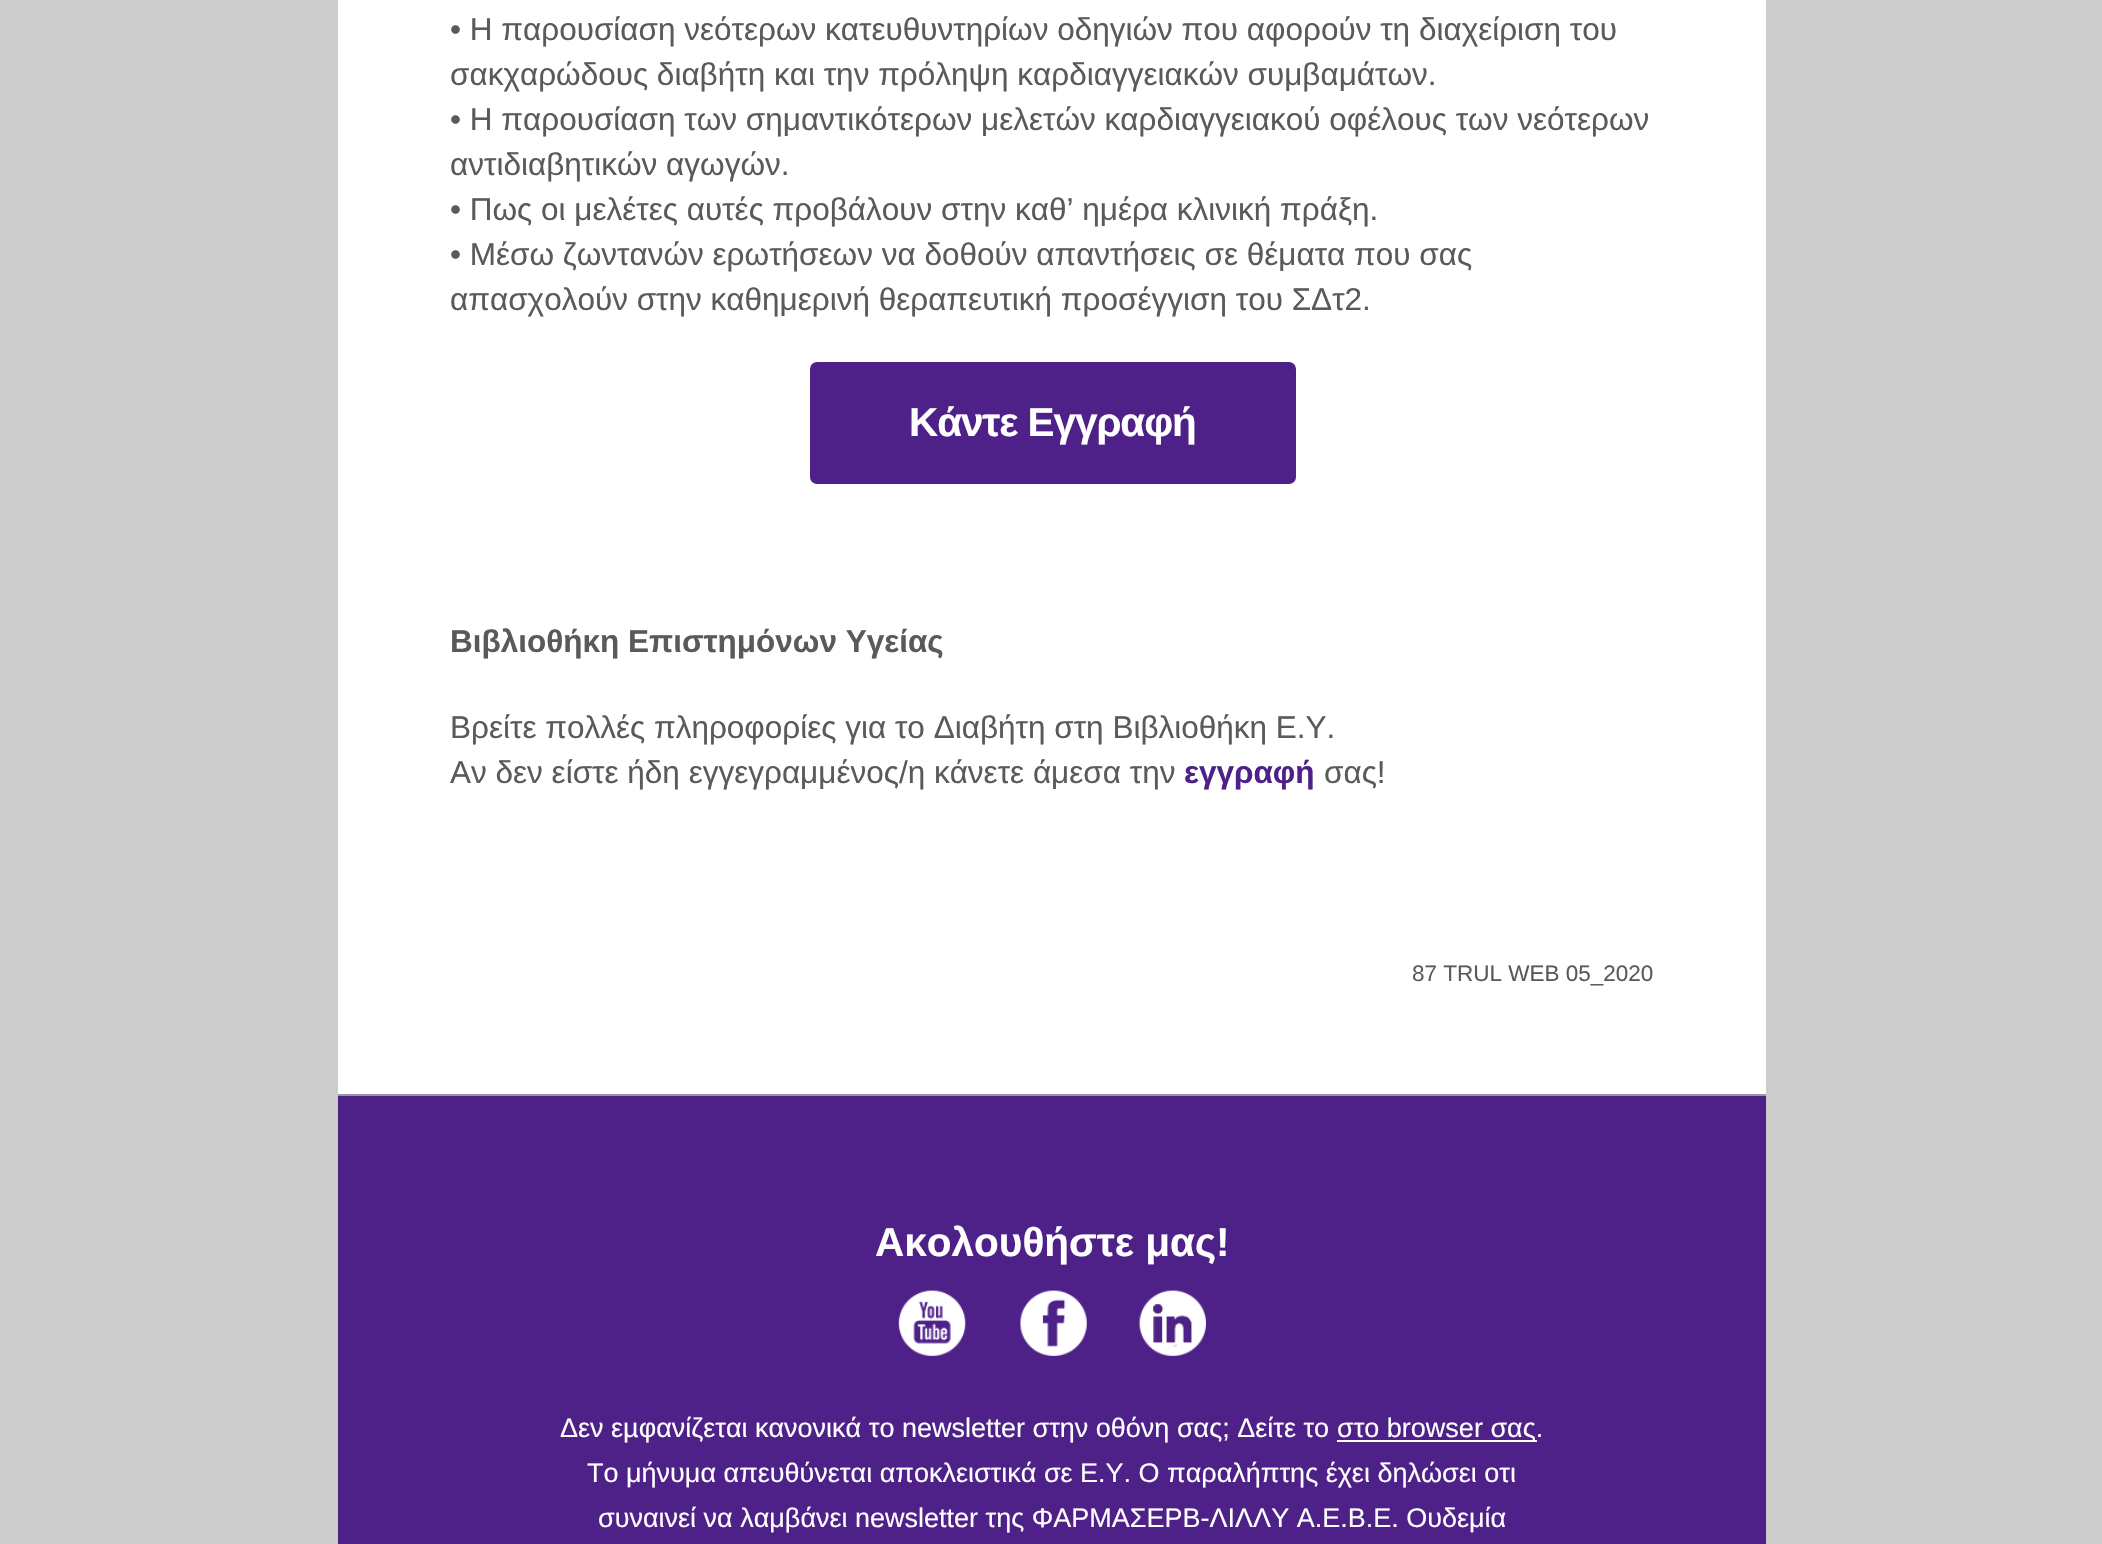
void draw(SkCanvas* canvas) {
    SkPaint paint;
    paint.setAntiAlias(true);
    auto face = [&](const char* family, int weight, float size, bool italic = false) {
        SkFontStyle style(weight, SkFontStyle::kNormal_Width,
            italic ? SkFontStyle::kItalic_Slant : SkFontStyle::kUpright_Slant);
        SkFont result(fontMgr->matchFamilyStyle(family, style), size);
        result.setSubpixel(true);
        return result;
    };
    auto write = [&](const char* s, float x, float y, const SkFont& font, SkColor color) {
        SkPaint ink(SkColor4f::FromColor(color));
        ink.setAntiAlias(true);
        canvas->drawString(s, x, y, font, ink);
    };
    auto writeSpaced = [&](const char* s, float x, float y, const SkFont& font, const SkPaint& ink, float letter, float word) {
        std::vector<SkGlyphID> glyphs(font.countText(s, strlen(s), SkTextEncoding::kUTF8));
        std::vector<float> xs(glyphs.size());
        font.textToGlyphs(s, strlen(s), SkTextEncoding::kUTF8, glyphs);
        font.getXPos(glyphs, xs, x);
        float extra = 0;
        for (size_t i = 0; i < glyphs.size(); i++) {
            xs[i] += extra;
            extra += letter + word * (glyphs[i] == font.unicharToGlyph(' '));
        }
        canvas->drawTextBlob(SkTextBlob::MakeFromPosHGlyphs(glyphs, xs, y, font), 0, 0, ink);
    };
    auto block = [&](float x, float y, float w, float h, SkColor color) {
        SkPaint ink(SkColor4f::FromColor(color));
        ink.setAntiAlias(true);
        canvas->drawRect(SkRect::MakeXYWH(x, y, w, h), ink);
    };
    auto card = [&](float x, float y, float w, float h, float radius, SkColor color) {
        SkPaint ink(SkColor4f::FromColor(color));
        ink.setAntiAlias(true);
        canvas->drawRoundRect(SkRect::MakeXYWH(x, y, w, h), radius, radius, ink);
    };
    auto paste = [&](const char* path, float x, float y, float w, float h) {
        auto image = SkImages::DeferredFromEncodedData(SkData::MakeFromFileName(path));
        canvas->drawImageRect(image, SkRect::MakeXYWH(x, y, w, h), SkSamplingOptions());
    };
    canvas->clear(SkColorSetRGB(204, 204, 204));
    block(338, 0, 1428, 1094, SK_ColorWHITE);
    auto kFont1 = face("Liberation Sans", 400, 31.5f);
    write("• Η παρουσίαση νεότερων κατευθυντηρίων οδηγιών που αφορούν τη διαχείριση του", 450, 40, kFont1, SkColorSetRGB(90, 90, 90));
    write("σακχαρώδους διαβήτη και την πρόληψη καρδιαγγειακών συμβαμάτων.", 450, 85, kFont1, SkColorSetRGB(90, 90, 90));
    write("• Η παρουσίαση των σημαντικότερων μελετών καρδιαγγειακού οφέλους των νεότερων", 450, 130, kFont1, SkColorSetRGB(90, 90, 90));
    write("αντιδιαβητικών αγωγών.", 450, 175, kFont1, SkColorSetRGB(90, 90, 90));
    write("• Πως οι μελέτες αυτές προβάλουν στην καθ’ ημέρα κλινική πράξη.", 450, 220, kFont1, SkColorSetRGB(90, 90, 90));
    write("• Μέσω ζωντανών ερωτήσεων να δοθούν απαντήσεις σε θέματα που σας", 450, 265, kFont1, SkColorSetRGB(90, 90, 90));
    write("απασχολούν στην καθημερινή θεραπευτική προσέγγιση του ΣΔτ2.", 450, 310, kFont1, SkColorSetRGB(90, 90, 90));
    card(810, 362, 486, 122, 7, SkColorSetRGB(78, 33, 136));
    auto kFont2 = face("Liberation Sans", 700, 40.5f);
    paint.setColor(SK_ColorWHITE);
    writeSpaced("Κάντε Εγγραφή", 909, 436, kFont2, paint, -1.1f, 0);
    auto kFont3 = face("Liberation Sans", 700, 31.5f);
    write("Βιβλιοθήκη Επιστημόνων Υγείας", 450, 652, kFont3, SkColorSetRGB(90, 90, 90));
    write("Βρείτε πολλές πληροφορίες για το Διαβήτη στη Βιβλιοθήκη Ε.Υ.", 450, 738, kFont1, SkColorSetRGB(90, 90, 90));
    write("Αν δεν είστε ήδη εγγεγραμμένος/η κάνετε άμεσα την", 450, 783, kFont1, SkColorSetRGB(90, 90, 90));
    write("εγγραφή", 1184, 783, kFont3, SkColorSetRGB(78, 33, 136));
    write("σας!", 1324, 783, kFont1, SkColorSetRGB(90, 90, 90));
    block(338, 1094, 1428, 2, SkColorSetRGB(153, 153, 153));
    auto kFont4 = face("Liberation Sans", 400, 22.5f);
    write("87 TRUL WEB 05_2020", 1412, 981, kFont4, SkColorSetRGB(90, 90, 90));
    block(338, 1096, 1428, 448, SkColorSetRGB(78, 33, 136));
    write("Ακολουθήστε μας!", 875, 1256, kFont2, SK_ColorWHITE);
    paste("pic1.png", 898, 1290, 68, 66);
    paste("pic2.png", 1020, 1290, 67, 66);
    paste("pic3.png", 1139, 1290, 67, 66);
    auto kFont5 = face("Liberation Sans", 400, 27);
    write("Δεν εµφανίζεται κανονικά το newsletter στην οθόνη σας; Δείτε το", 560, 1437, kFont5, SK_ColorWHITE);
    block(1337, 1440, 200, 2, SK_ColorWHITE);
    write("στο browser σας.", 1337, 1437, kFont5, SK_ColorWHITE);
    write("Το μήνυμα απευθύνεται αποκλειστικά σε Ε.Υ. Ο παραλήπτης έχει δηλώσει οτι", 587, 1482, kFont5, SK_ColorWHITE);
    write("συναινεί να λαμβάνει newsletter της ΦΑΡΜΑΣΕΡΒ-ΛΙΛΛΥ Α.Ε.Β.Ε. Ουδεμία", 598, 1527, kFont5, SK_ColorWHITE);
}
